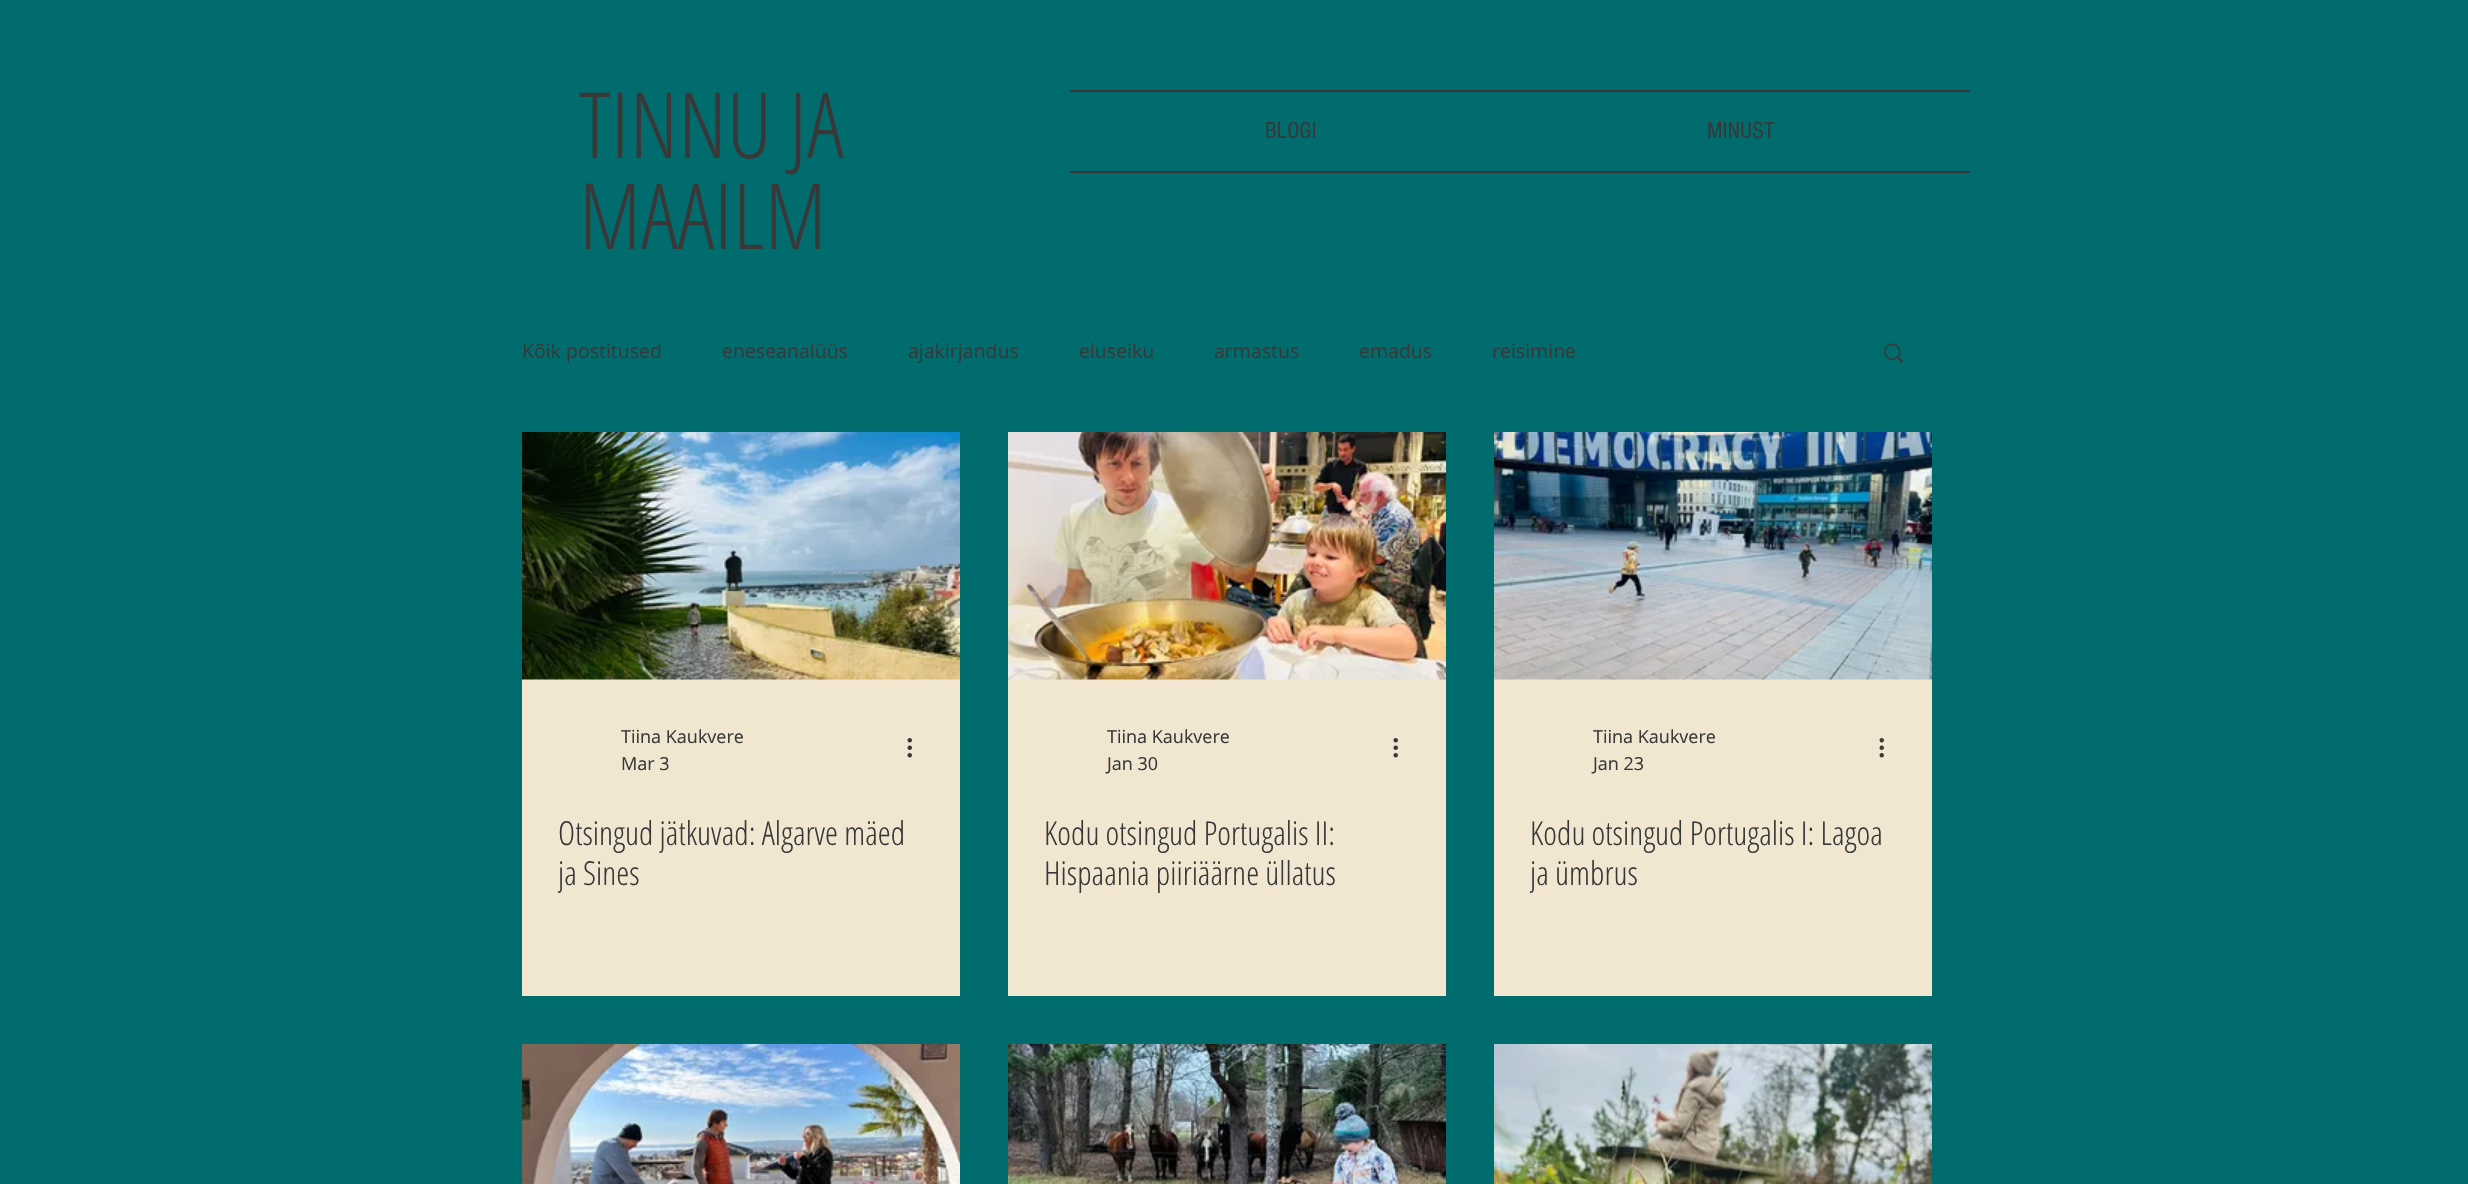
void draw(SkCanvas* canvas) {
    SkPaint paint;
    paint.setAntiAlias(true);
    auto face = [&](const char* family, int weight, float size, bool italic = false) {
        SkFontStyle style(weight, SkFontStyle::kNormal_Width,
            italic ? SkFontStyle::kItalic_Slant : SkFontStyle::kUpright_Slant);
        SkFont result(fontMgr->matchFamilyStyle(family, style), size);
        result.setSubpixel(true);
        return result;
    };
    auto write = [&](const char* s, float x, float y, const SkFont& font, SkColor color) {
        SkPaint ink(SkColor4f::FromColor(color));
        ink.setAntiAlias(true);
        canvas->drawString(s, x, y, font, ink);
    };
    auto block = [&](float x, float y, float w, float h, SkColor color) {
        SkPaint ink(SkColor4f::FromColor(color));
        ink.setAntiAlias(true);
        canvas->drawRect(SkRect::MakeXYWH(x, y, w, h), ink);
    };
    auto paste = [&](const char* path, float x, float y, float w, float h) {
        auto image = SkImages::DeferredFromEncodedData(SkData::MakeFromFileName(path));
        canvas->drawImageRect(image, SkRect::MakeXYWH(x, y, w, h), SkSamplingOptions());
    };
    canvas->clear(SkColorSetRGB(0, 108, 109));
    auto kFont1 = face("Open Sans Condensed", 300, 91.5f);
    write("TINNU JA", 579, 158, kFont1, SkColorSetRGB(56, 56, 56));
    write("MAAILM", 579, 249, kFont1, SkColorSetRGB(56, 56, 56));
    block(1070, 90, 900, 2, SkColorSetRGB(56, 56, 56));
    block(1070, 171, 900, 2, SkColorSetRGB(56, 56, 56));
    auto kFont2 = face("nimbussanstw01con", 400, 24);
    write("BLOGI", 1265, 138, kFont2, SkColorSetRGB(56, 56, 56));
    write("MINUST", 1707, 138, kFont2, SkColorSetRGB(56, 56, 56));
    auto kFont3 = face("Open Sans", 400, 19.5f);
    write("Kõik postitused", 522, 358, kFont3, SkColorSetRGB(56, 56, 56));
    write("eneseanalüüs", 722, 358, kFont3, SkColorSetRGB(56, 56, 56));
    write("ajakirjandus", 908, 358, kFont3, SkColorSetRGB(56, 56, 56));
    write("eluseiku", 1079, 358, kFont3, SkColorSetRGB(56, 56, 56));
    write("armastus", 1214, 358, kFont3, SkColorSetRGB(56, 56, 56));
    write("emadus", 1359, 358, kFont3, SkColorSetRGB(56, 56, 56));
    write("reisimine", 1492, 358, kFont3, SkColorSetRGB(56, 56, 56));
    paste("pic1.png", 1884, 343, 20, 20);
    block(522, 679, 438, 317, SkColorSetRGB(241, 231, 209));
    paste("pic2.png", 522, 432, 438, 248);
    auto kFont4 = face("Open Sans", 400, 18);
    write("Tiina Kaukvere", 621, 743, kFont4, SkColorSetRGB(56, 56, 56));
    write("Mar 3", 621, 770, kFont4, SkColorSetRGB(56, 56, 56));
    paste("pic3.png", 907, 738, 5, 20);
    auto kFont5 = face("Open Sans Condensed", 300, 33);
    write("Otsingud jätkuvad: Algarve mäed", 558, 845, kFont5, SkColorSetRGB(56, 56, 56));
    write("ja Sines", 558, 885, kFont5, SkColorSetRGB(56, 56, 56));
    block(1008, 679, 438, 317, SkColorSetRGB(241, 231, 209));
    paste("pic4.png", 1008, 432, 438, 248);
    write("Tiina Kaukvere", 1107, 743, kFont4, SkColorSetRGB(56, 56, 56));
    write("Jan 30", 1107, 770, kFont4, SkColorSetRGB(56, 56, 56));
    paste("pic3.png", 1393, 738, 5, 20);
    write("Kodu otsingud Portugalis II:", 1044, 845, kFont5, SkColorSetRGB(56, 56, 56));
    write("Hispaania piiriäärne üllatus", 1044, 885, kFont5, SkColorSetRGB(56, 56, 56));
    block(1494, 679, 438, 317, SkColorSetRGB(241, 231, 209));
    paste("pic5.png", 1494, 432, 438, 248);
    write("Tiina Kaukvere", 1593, 743, kFont4, SkColorSetRGB(56, 56, 56));
    write("Jan 23", 1593, 770, kFont4, SkColorSetRGB(56, 56, 56));
    paste("pic3.png", 1879, 738, 5, 20);
    write("Kodu otsingud Portugalis I: Lagoa", 1530, 845, kFont5, SkColorSetRGB(56, 56, 56));
    write("ja ümbrus", 1530, 885, kFont5, SkColorSetRGB(56, 56, 56));
    paste("pic6.png", 522, 1044, 438, 140);
    paste("pic7.png", 1008, 1044, 438, 140);
    paste("pic8.png", 1494, 1044, 438, 140);
}
